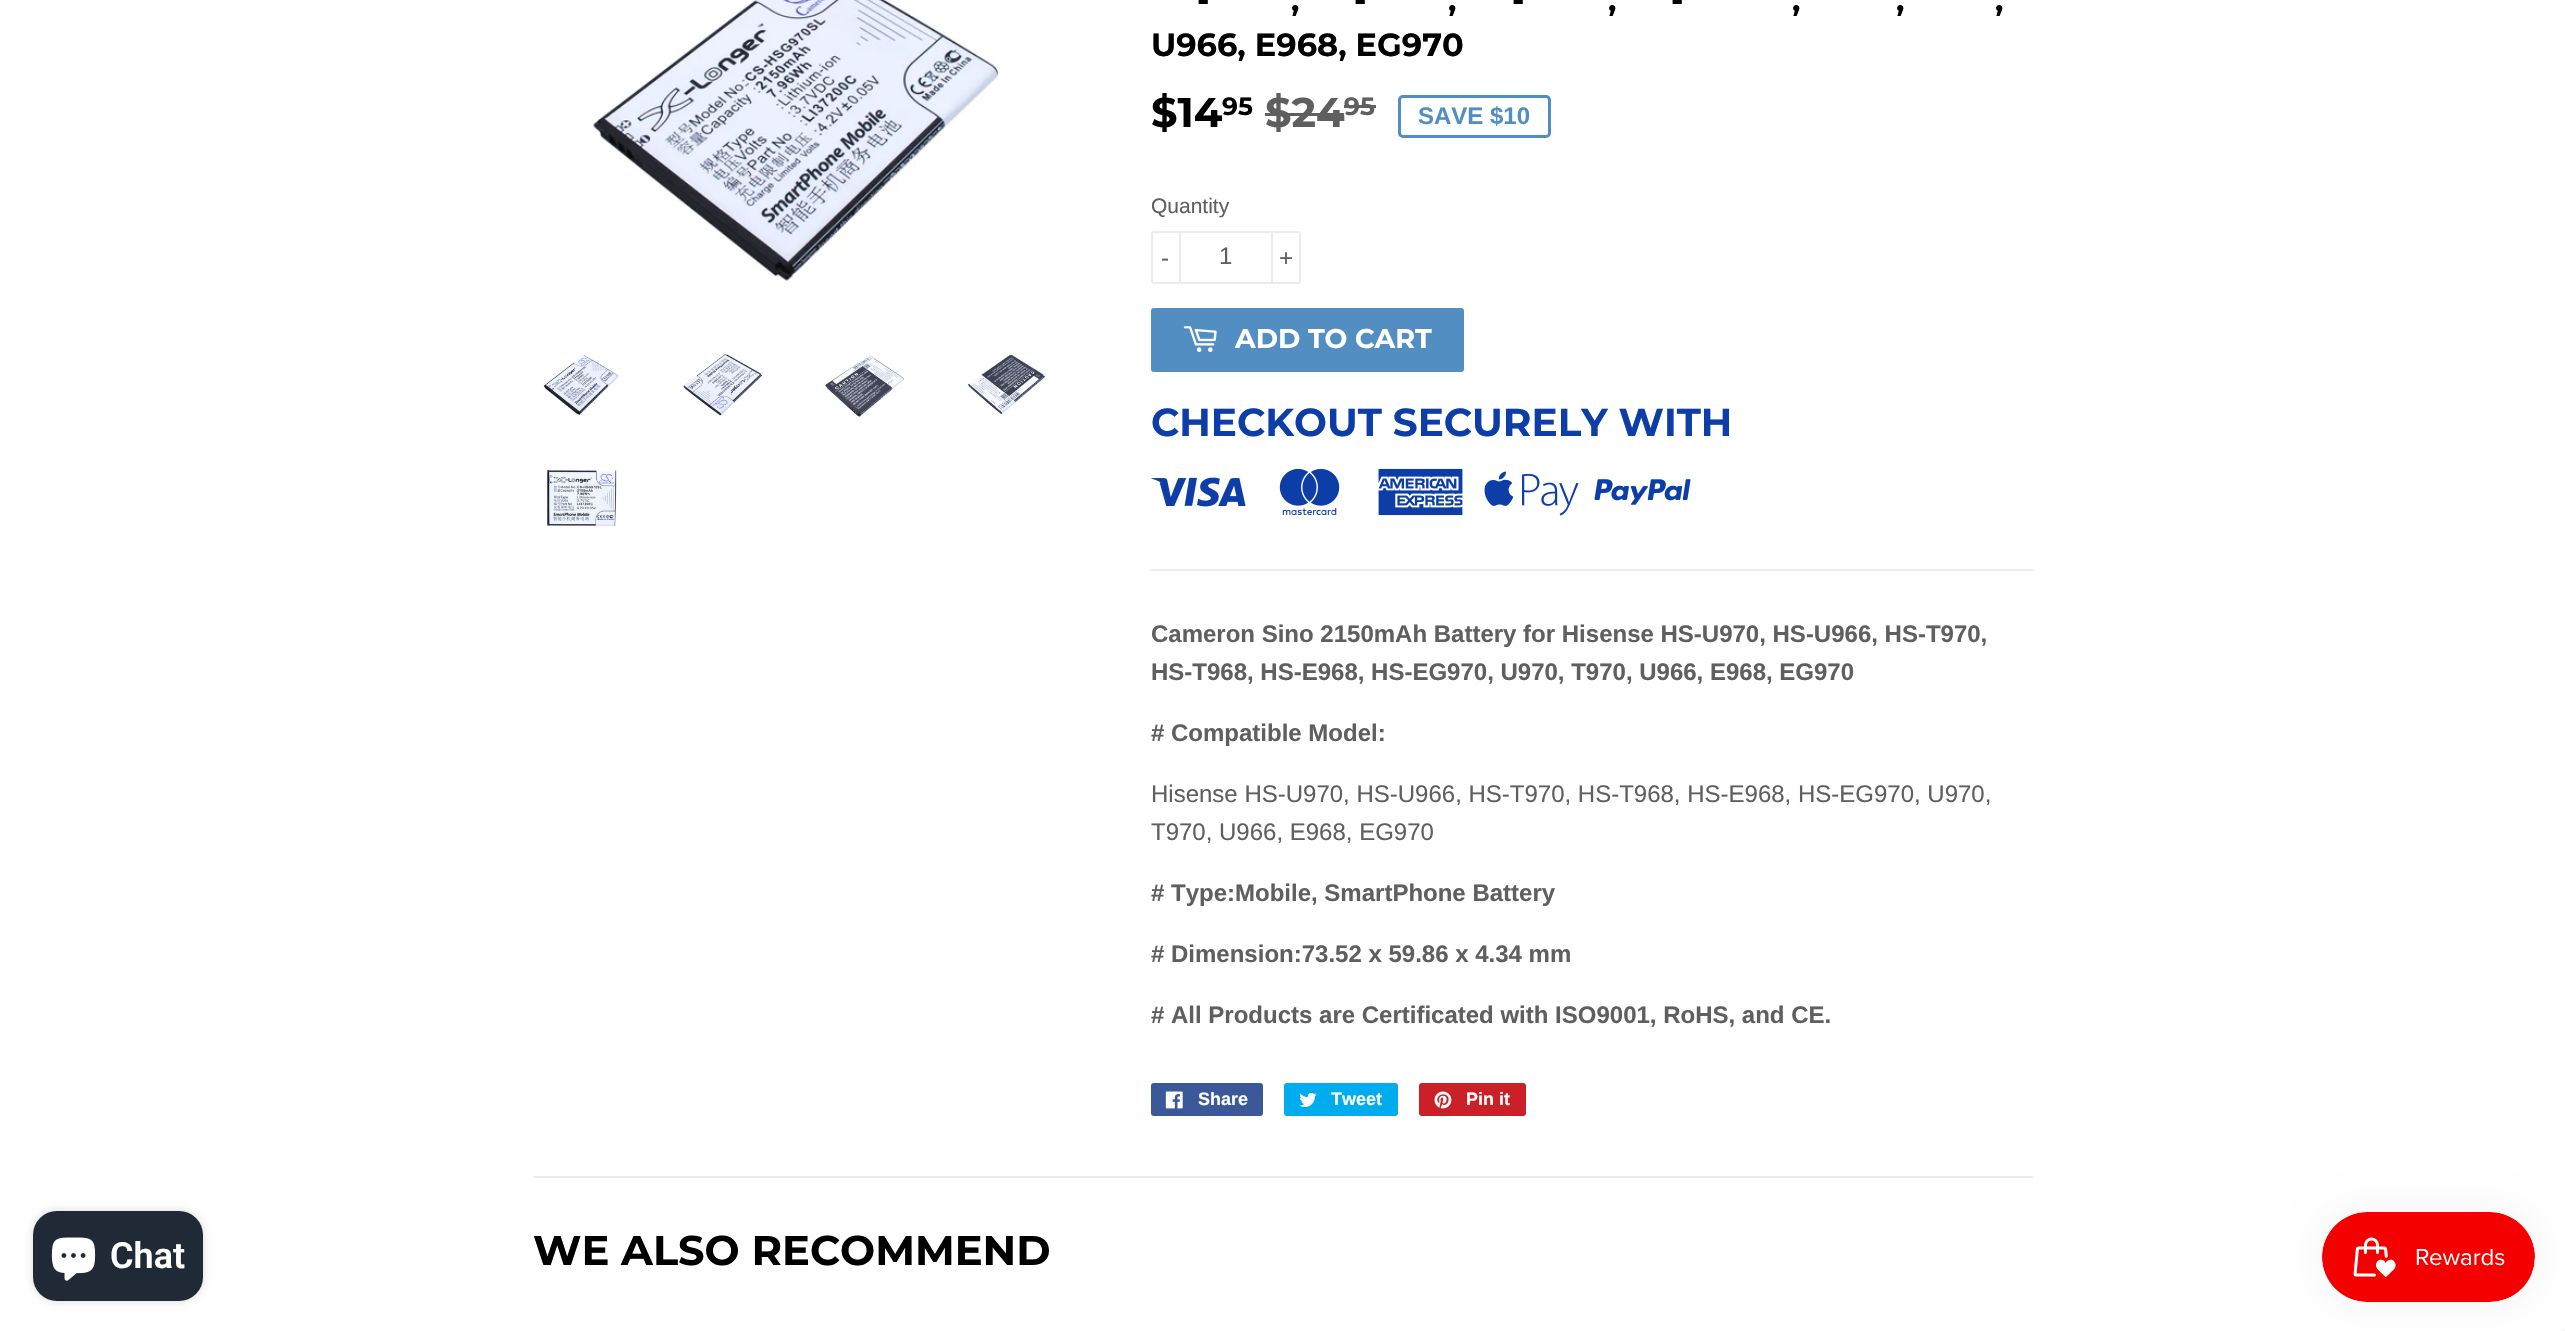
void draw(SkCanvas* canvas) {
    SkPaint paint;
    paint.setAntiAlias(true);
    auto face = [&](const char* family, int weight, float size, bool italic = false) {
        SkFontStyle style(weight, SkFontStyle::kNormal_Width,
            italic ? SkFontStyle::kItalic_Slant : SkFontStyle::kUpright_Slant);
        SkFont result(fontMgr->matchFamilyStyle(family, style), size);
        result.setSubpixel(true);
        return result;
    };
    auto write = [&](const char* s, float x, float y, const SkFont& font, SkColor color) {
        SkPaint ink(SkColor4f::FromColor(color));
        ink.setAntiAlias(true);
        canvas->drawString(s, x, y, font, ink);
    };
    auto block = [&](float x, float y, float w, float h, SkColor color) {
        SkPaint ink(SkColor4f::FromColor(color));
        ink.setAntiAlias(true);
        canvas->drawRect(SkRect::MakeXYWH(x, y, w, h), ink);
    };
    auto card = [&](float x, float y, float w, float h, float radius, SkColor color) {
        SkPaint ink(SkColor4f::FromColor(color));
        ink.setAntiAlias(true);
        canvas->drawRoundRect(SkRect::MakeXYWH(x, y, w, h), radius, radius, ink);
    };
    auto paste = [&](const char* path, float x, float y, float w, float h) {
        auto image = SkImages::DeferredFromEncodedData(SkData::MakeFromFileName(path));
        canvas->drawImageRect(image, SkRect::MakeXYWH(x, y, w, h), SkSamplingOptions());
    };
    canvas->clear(SK_ColorWHITE);
    paint.setColor(SkColorSetARGB(38, 0, 0, 0));
    paint.setMaskFilter(SkMaskFilter::MakeBlur(kNormal_SkBlurStyle, 4));
    canvas->drawRoundRect(SkRect::MakeXYWH(33, 1211, 170, 90), 24, 24, paint);
    paint.setMaskFilter(nullptr);
    card(33, 1211, 170, 90, 24, SkColorSetRGB(32, 42, 54));
    paste("pic1.png", 51, 1237, 45, 44);
    auto kFont1 = face("Roboto", 600, 36);
    write("Chat", 110, 1268, kFont1, SK_ColorWHITE);
    paste("pic2.png", 593, 0, 406, 281);
    paste("pic3.png", 542, 355, 77, 60);
    paste("pic4.png", 683, 353, 80, 63);
    paste("pic5.png", 825, 355, 80, 63);
    paste("pic6.png", 967, 354, 79, 60);
    paste("pic7.png", 547, 469, 72, 58);
    auto kFont2 = face("Montserrat", 100, 32);
    write("-", 1197, 11, kFont2, SK_ColorBLACK);
    write("-", 1354, 11, kFont2, SK_ColorBLACK);
    write("-", 1512, 11, kFont2, SK_ColorBLACK);
    write("-", 1671, 11, kFont2, SK_ColorBLACK);
    write(",", 1291, 11, kFont2, SK_ColorBLACK);
    write(",", 1448, 11, kFont2, SK_ColorBLACK);
    write(",", 1608, 11, kFont2, SK_ColorBLACK);
    write(",", 1792, 11, kFont2, SK_ColorBLACK);
    write(",", 1896, 11, kFont2, SK_ColorBLACK);
    write(",", 1995, 11, kFont2, SK_ColorBLACK);
    write("U966, E968, EG970", 1151, 56, kFont2, SK_ColorBLACK);
    auto kFont3 = face("Montserrat", 100, 41.6f);
    write("$14", 1151, 127, kFont3, SK_ColorBLACK);
    auto kFont4 = face("Montserrat", 100, 25);
    write("95", 1222, 115, kFont4, SK_ColorBLACK);
    write("$24", 1265, 127, kFont3, SkColorSetRGB(95, 95, 95));
    block(1265, 113, 79, 3, SkColorSetRGB(95, 95, 95));
    write("95", 1344, 115, kFont4, SkColorSetRGB(95, 95, 95));
    block(1344, 105, 32, 3, SkColorSetRGB(95, 95, 95));
    paint.setStyle(SkPaint::kStroke_Style);
    paint.setStrokeWidth(3);
    paint.setColor(SkColorSetRGB(82, 142, 193));
    canvas->drawRoundRect(SkRect::MakeXYWH(1399.5f, 96.5f, 150, 40), 3.5f, 3.5f, paint);
    auto kFont5 = face("Liberation Sans", 700, 24);
    write("SAVE $10", 1418, 124, kFont5, SkColorSetRGB(82, 142, 193));
    auto kFont6 = face("Liberation Sans", 400, 21);
    write("Quantity", 1151, 213, kFont6, SkColorSetRGB(95, 95, 95));
    paint.setStrokeWidth(2);
    paint.setColor(SkColorSetRGB(236, 236, 236));
    canvas->drawRoundRect(SkRect::MakeXYWH(1152, 232, 148, 51), 2, 2, paint);
    block(1179, 231, 2, 53, SkColorSetRGB(236, 236, 236));
    auto kFont7 = face("Liberation Sans", 400, 24);
    write("-", 1161, 266, kFont7, SkColorSetRGB(95, 95, 95));
    write("1", 1219, 264, kFont7, SkColorSetRGB(95, 95, 95));
    block(1271, 231, 2, 53, SkColorSetRGB(236, 236, 236));
    write("+", 1279, 266, kFont7, SkColorSetRGB(95, 95, 95));
    card(1151, 308, 313, 64, 3, SkColorSetRGB(82, 142, 193));
    paste("pic8.png", 1183, 326, 34, 26);
    auto kFont8 = face("Montserrat", 100, 27);
    write("ADD TO CART", 1235, 348, kFont8, SK_ColorWHITE);
    auto kFont9 = face("Montserrat", 100, 39);
    write("CHECKOUT SECURELY WITH", 1151, 436, kFont9, SkColorSetRGB(13, 61, 166));
    paste("pic9.png", 1151, 477, 95, 30);
    paste("pic10.png", 1279, 468, 61, 48);
    paste("pic11.png", 1378, 468, 85, 48);
    paste("pic12.png", 1484, 471, 95, 45);
    paste("pic13.png", 1594, 479, 97, 26);
    block(1151, 569, 882, 2, SkColorSetRGB(236, 236, 236));
    write("Cameron Sino 2150mAh Battery for Hisense HS-U970, HS-U966, HS-T970,", 1151, 642, kFont5, SkColorSetRGB(95, 95, 95));
    write("HS-T968, HS-E968, HS-EG970, U970, T970, U966, E968, EG970", 1151, 680, kFont5, SkColorSetRGB(95, 95, 95));
    write("# Compatible Model:", 1151, 741, kFont5, SkColorSetRGB(95, 95, 95));
    write("Hisense HS-U970, HS-U966, HS-T970, HS-T968, HS-E968, HS-EG970, U970,", 1151, 802, kFont7, SkColorSetRGB(95, 95, 95));
    write("T970, U966, E968, EG970", 1151, 840, kFont7, SkColorSetRGB(95, 95, 95));
    write("# Type:Mobile, SmartPhone Battery", 1151, 901, kFont5, SkColorSetRGB(95, 95, 95));
    write("# Dimension:73.52 x 59.86 x 4.34 mm", 1151, 962, kFont5, SkColorSetRGB(95, 95, 95));
    write("# All Products are Certificated with ISO9001, RoHS, and CE.", 1151, 1023, kFont5, SkColorSetRGB(95, 95, 95));
    card(1151, 1083, 112, 33, 3, SkColorSetRGB(59, 89, 152));
    paste("pic14.png", 1165, 1091, 18, 18);
    auto kFont10 = face("Liberation Sans", 700, 18);
    write("Share", 1198, 1105, kFont10, SK_ColorWHITE);
    card(1284, 1083, 114, 33, 3, SkColorSetRGB(0, 172, 237));
    paste("pic15.png", 1299, 1092, 18, 15);
    write("Tweet", 1331, 1105, kFont10, SK_ColorWHITE);
    card(1419, 1083, 107, 33, 3, SkColorSetRGB(203, 32, 39));
    paste("pic16.png", 1434, 1091, 18, 18);
    write("Pin it", 1466, 1105, kFont10, SK_ColorWHITE);
    block(533, 1176, 1500, 2, SkColorSetRGB(236, 236, 236));
    write("WE ALSO RECOMMEND", 533, 1265, kFont3, SK_ColorBLACK);
    block(2562, 1329, 3, 2, SkColorSetRGB(245, 245, 245));
    paint.setStyle(SkPaint::kFill_Style);
    paint.setColor(SkColorSetARGB(13, 0, 0, 0));
    paint.setMaskFilter(SkMaskFilter::MakeBlur(kNormal_SkBlurStyle, 19));
    canvas->drawRoundRect(SkRect::MakeXYWH(2322, 1212, 213, 90), 45, 45, paint);
    paint.setMaskFilter(nullptr);
    paste("pic17.png", 2322, 1212, 213, 90);
}
